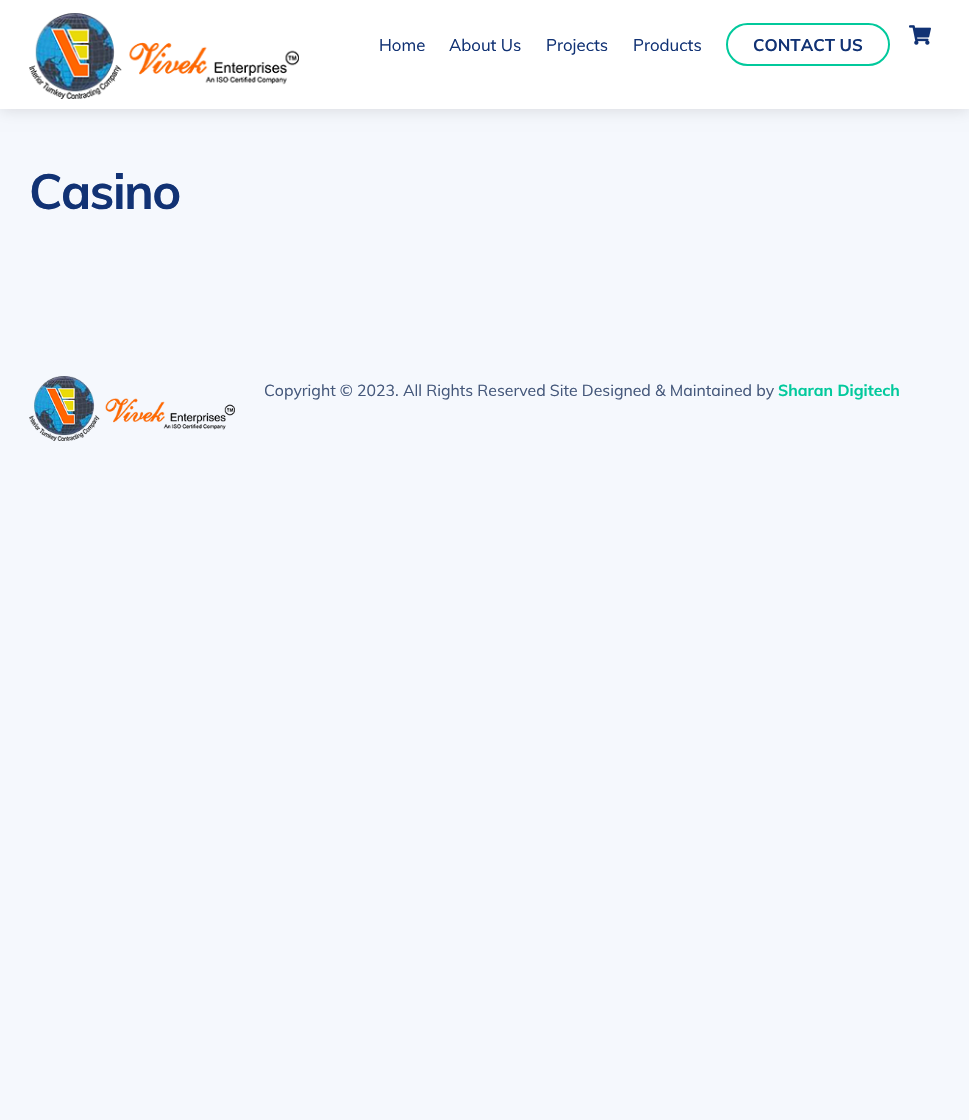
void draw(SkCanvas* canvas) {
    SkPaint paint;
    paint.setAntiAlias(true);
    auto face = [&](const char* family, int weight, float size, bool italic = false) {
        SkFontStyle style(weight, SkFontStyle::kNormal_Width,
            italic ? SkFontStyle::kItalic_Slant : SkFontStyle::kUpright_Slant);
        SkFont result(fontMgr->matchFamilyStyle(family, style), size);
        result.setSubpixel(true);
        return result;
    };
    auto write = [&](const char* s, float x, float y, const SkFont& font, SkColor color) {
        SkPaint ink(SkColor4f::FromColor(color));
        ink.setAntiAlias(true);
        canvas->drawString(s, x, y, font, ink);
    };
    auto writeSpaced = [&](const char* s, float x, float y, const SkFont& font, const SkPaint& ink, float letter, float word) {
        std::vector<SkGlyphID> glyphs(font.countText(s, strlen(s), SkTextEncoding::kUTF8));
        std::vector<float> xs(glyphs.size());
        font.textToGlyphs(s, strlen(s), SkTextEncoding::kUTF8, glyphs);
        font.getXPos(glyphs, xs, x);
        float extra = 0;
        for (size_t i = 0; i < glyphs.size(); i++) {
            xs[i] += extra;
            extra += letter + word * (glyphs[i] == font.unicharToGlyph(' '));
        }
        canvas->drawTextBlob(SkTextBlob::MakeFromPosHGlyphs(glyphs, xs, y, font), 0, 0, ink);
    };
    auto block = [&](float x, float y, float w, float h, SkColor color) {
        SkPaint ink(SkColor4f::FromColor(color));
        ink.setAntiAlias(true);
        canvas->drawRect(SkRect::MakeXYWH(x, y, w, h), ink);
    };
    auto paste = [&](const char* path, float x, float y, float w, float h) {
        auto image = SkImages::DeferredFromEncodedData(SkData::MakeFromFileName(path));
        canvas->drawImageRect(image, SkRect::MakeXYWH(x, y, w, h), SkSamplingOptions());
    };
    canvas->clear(SkColorSetRGB(245, 248, 253));
    paint.setColor(SkColorSetARGB(31, 0, 0, 0));
    paint.setMaskFilter(SkMaskFilter::MakeBlur(kNormal_SkBlurStyle, 7.5f));
    canvas->drawRect(SkRect::MakeXYWH(0, 1, 969, 109), paint);
    paint.setMaskFilter(nullptr);
    block(0, 0, 969, 109, SK_ColorWHITE);
    paste("pic1.png", 29, 13, 270, 86);
    auto kFont1 = face("Muli", 400, 16.75f);
    write("Home", 379, 51, kFont1, SkColorSetRGB(17, 50, 116));
    write("About Us", 449, 51, kFont1, SkColorSetRGB(17, 50, 116));
    write("Projects", 546, 51, kFont1, SkColorSetRGB(17, 50, 116));
    write("Products", 633, 51, kFont1, SkColorSetRGB(17, 50, 116));
    paint.setStyle(SkPaint::kStroke_Style);
    paint.setStrokeWidth(2);
    paint.setColor(SkColorSetRGB(1, 201, 156));
    canvas->drawRoundRect(SkRect::MakeXYWH(727, 24, 162, 41), 20.5f, 20.5f, paint);
    auto kFont2 = face("Muli", 700, 16.75f);
    write("CONTACT US", 753, 51, kFont2, SkColorSetRGB(17, 50, 116));
    paste("pic2.png", 909, 25, 22, 20);
    auto kFont3 = face("Muli", 700, 49);
    paint.setStyle(SkPaint::kFill_Style);
    paint.setColor(SkColorSetRGB(17, 50, 116));
    writeSpaced("Casino", 29, 209, kFont3, paint, -1.5f, 0);
    paste("pic3.png", 29, 376, 206, 65);
    auto kFont4 = face("Muli", 400, 15.85f);
    write("Copyright © 2023. All Rights Reserved Site Designed & Maintained by", 264, 396, kFont4, SkColorSetRGB(69, 88, 123));
    auto kFont5 = face("Muli", 700, 15.85f);
    write("Sharan Digitech", 778, 396, kFont5, SkColorSetRGB(1, 201, 156));
}
